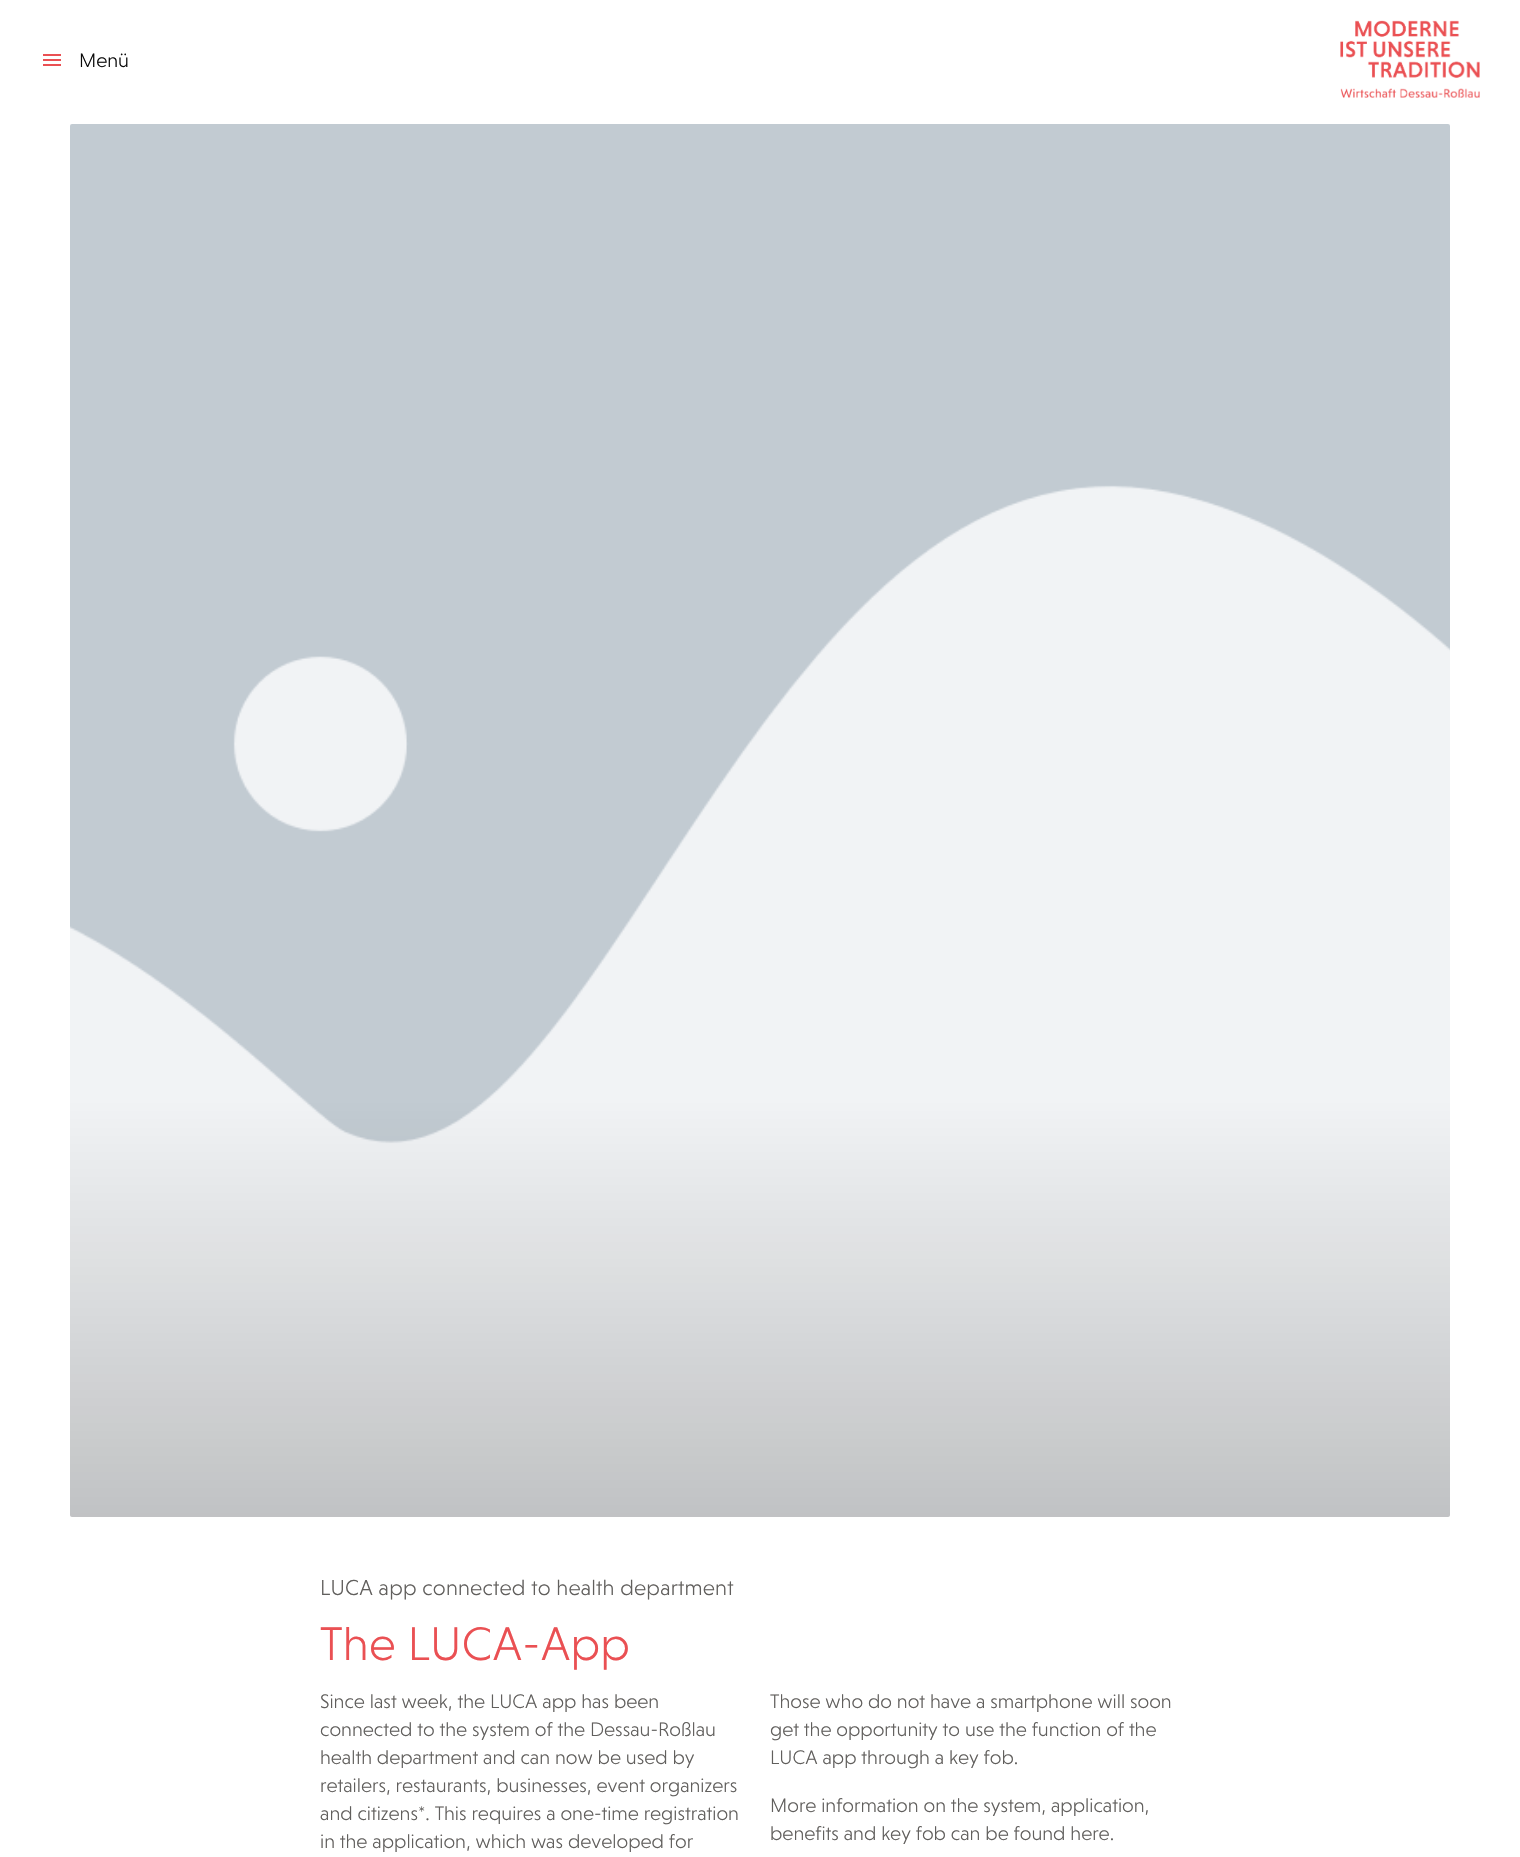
void draw(SkCanvas* canvas) {
    SkPaint paint;
    paint.setAntiAlias(true);
    auto face = [&](const char* family, int weight, float size, bool italic = false) {
        SkFontStyle style(weight, SkFontStyle::kNormal_Width,
            italic ? SkFontStyle::kItalic_Slant : SkFontStyle::kUpright_Slant);
        SkFont result(fontMgr->matchFamilyStyle(family, style), size);
        result.setSubpixel(true);
        return result;
    };
    auto write = [&](const char* s, float x, float y, const SkFont& font, SkColor color) {
        SkPaint ink(SkColor4f::FromColor(color));
        ink.setAntiAlias(true);
        canvas->drawString(s, x, y, font, ink);
    };
    auto writeSpaced = [&](const char* s, float x, float y, const SkFont& font, const SkPaint& ink, float letter, float word) {
        std::vector<SkGlyphID> glyphs(font.countText(s, strlen(s), SkTextEncoding::kUTF8));
        std::vector<float> xs(glyphs.size());
        font.textToGlyphs(s, strlen(s), SkTextEncoding::kUTF8, glyphs);
        font.getXPos(glyphs, xs, x);
        float extra = 0;
        for (size_t i = 0; i < glyphs.size(); i++) {
            xs[i] += extra;
            extra += letter + word * (glyphs[i] == font.unicharToGlyph(' '));
        }
        canvas->drawTextBlob(SkTextBlob::MakeFromPosHGlyphs(glyphs, xs, y, font), 0, 0, ink);
    };
    auto paste = [&](const char* path, float x, float y, float w, float h) {
        auto image = SkImages::DeferredFromEncodedData(SkData::MakeFromFileName(path));
        canvas->drawImageRect(image, SkRect::MakeXYWH(x, y, w, h), SkSamplingOptions());
    };
    canvas->clear(SK_ColorWHITE);
    paste("pic1.png", 43, 54, 18, 12);
    auto kFont1 = face("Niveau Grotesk", 300, 20);
    write("Menü", 79, 67, kFont1, SkColorSetRGB(10, 10, 10));
    paste("pic2.png", 1340, 20, 140, 78);
    paste("pic3.png", 70, 124, 1380, 1393);
    {
        const SkColor colors[] = {SkColorSetARGB(0, 0, 0, 0), SkColorSetARGB(51, 0, 0, 0)};
        const float stops[] = {0, 1};
        const SkPoint ends[] = {{760, 1099}, {760, 1517}};
        paint.setShader(SkGradientShader::MakeLinear(ends, colors, stops, 2, SkTileMode::kClamp));
        paint.setAlpha(255);
    }
    canvas->drawPath(SkPathBuilder().moveTo(70, 1099).lineTo(1450, 1099).lineTo(1450, 1515).cubicTo(1450, 1516, 1449, 1517, 1448, 1517).lineTo(72, 1517).cubicTo(71, 1517, 70, 1516, 70, 1515).close().detach(), paint);
    auto kFont2 = face("Niveau Grotesk", 300, 22);
    paint.setShader(nullptr);
    paint.setColor(SkColorSetRGB(97, 95, 93));
    writeSpaced("LUCA app connected to health department", 320, 1595, kFont2, paint, 0.2f, 0);
    auto kFont3 = face("Niveau Grotesk", 300, 48);
    paint.setColor(SkColorSetRGB(234, 80, 83));
    writeSpaced("The LUCA-App", 320, 1660, kFont3, paint, 0.2f, 0);
    write("Since last week, the LUCA app has been", 320, 1708, kFont1, SkColorSetRGB(97, 95, 93));
    write("connected to the system of the Dessau-Roßlau", 320, 1736, kFont1, SkColorSetRGB(97, 95, 93));
    write("health department and can now be used by", 320, 1764, kFont1, SkColorSetRGB(97, 95, 93));
    write("retailers, restaurants, businesses, event organizers", 320, 1792, kFont1, SkColorSetRGB(97, 95, 93));
    write("and citizens*. This requires a one-time registration", 320, 1820, kFont1, SkColorSetRGB(97, 95, 93));
    write("in the application, which was developed for", 320, 1848, kFont1, SkColorSetRGB(97, 95, 93));
    write("Those who do not have a smartphone will soon", 770, 1708, kFont1, SkColorSetRGB(97, 95, 93));
    write("get the opportunity to use the function of the", 770, 1736, kFont1, SkColorSetRGB(97, 95, 93));
    write("LUCA app through a key fob.", 770, 1764, kFont1, SkColorSetRGB(97, 95, 93));
    write("More information on the system, application,", 770, 1812, kFont1, SkColorSetRGB(97, 95, 93));
    write("benefits and key fob can be found here.", 770, 1840, kFont1, SkColorSetRGB(97, 95, 93));
}
